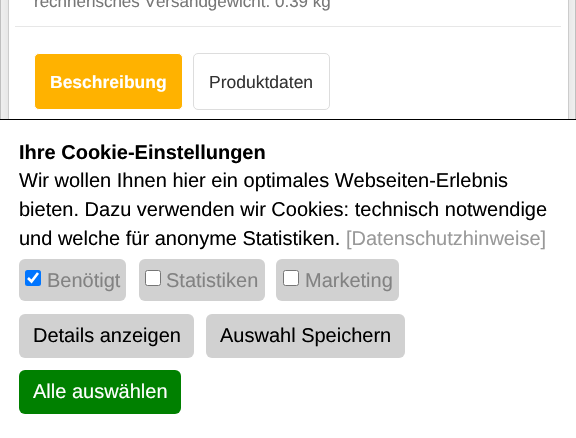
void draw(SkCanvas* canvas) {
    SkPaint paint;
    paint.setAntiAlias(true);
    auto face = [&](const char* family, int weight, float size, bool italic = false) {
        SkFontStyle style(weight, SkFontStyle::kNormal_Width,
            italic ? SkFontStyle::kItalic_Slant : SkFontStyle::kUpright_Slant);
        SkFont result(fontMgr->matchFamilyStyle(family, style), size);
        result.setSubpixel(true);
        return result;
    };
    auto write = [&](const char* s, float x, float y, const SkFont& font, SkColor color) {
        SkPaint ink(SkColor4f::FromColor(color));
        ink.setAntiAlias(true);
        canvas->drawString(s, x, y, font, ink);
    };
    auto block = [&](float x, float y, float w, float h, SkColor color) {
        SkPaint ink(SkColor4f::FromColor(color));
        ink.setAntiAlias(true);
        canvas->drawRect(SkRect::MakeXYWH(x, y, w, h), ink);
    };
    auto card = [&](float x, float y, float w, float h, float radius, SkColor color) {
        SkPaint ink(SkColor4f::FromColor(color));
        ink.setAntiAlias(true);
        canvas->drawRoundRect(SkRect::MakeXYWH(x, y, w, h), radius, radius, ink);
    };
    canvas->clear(SK_ColorWHITE);
    block(575, 0, 1, 119, SkColorSetRGB(204, 204, 204));
    block(0, 0, 1, 119, SkColorSetRGB(204, 204, 204));
    canvas->save();
    canvas->clipPath(SkPathBuilder(SkPathFillType::kEvenOdd).moveTo(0, 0).lineTo(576, 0).lineTo(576, 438).lineTo(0, 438).close().moveTo(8, -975).lineTo(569, -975).lineTo(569, 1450).lineTo(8, 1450).close().detach(), true);
    paint.setColor(SkColorSetARGB(59, 0, 0, 0));
    paint.setMaskFilter(SkMaskFilter::MakeBlur(kNormal_SkBlurStyle, 22));
    canvas->drawRect(SkRect::MakeXYWH(15, -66, 546, 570), paint);
    paint.setMaskFilter(nullptr);
    canvas->restore();
    block(568, 0, 1, 119, SkColorSetRGB(204, 204, 204));
    block(8, 0, 1, 119, SkColorSetRGB(204, 204, 204));
    block(15, 26, 546, 1, SkColorSetRGB(231, 231, 231));
    auto kFont1 = face("Liberation Sans", 400, 17);
    write("rechnerisches Versandgewicht: 0.39 kg", 34, 7, kFont1, SkColorSetRGB(119, 119, 119));
    paint.setColor(SkColorSetRGB(255, 178, 0));
    canvas->drawRoundRect(SkRect::MakeXYWH(34.5f, 53.5f, 148, 56), 4.5f, 4.5f, paint);
    paint.setStyle(SkPaint::kStroke_Style);
    paint.setStrokeWidth(1);
    paint.setColor(SK_ColorWHITE);
    canvas->drawRoundRect(SkRect::MakeXYWH(34.5f, 53.5f, 148, 56), 4.5f, 4.5f, paint);
    auto kFont2 = face("Liberation Sans", 700, 17.5f);
    write("Beschreibung", 50, 88, kFont2, SK_ColorWHITE);
    paint.setColor(SkColorSetRGB(221, 221, 221));
    canvas->drawRoundRect(SkRect::MakeXYWH(193.5f, 53.5f, 136, 56), 4.5f, 4.5f, paint);
    auto kFont3 = face("Liberation Sans", 400, 17.5f);
    write("Produktdaten", 209, 88, kFont3, SkColorSetRGB(51, 51, 51));
    block(0, 120, 576, 318, SK_ColorWHITE);
    block(0, 119, 576, 1, SK_ColorBLACK);
    auto kFont4 = face("Liberation Sans", 700, 20);
    write("Ihre Cookie-Einstellungen", 19, 159, kFont4, SK_ColorBLACK);
    auto kFont5 = face("Liberation Sans", 400, 20);
    write("Wir wollen Ihnen hier ein optimales Webseiten-Erlebnis", 19, 187, kFont5, SK_ColorBLACK);
    write("bieten. Dazu verwenden wir Cookies: technisch notwendige", 19, 216, kFont5, SK_ColorBLACK);
    write("und welche für anonyme Statistiken.", 19, 245, kFont5, SK_ColorBLACK);
    write("[Datenschutzhinweise]", 346, 245, kFont5, SkColorSetRGB(153, 153, 153));
    card(19, 259, 107, 42, 6, SkColorSetRGB(209, 209, 209));
    card(25, 270, 16, 16, 2.5f, SkColorSetRGB(0, 117, 255));
    paint.setStrokeWidth(2.6f);
    paint.setColor(SK_ColorWHITE);
    canvas->drawPath(SkPathBuilder().moveTo(28, 278).lineTo(31.5f, 281.5f).lineTo(38, 273).detach(), paint);
    write("Benötigt", 47, 287, kFont5, SkColorSetRGB(130, 130, 130));
    card(139, 259, 126, 42, 6, SkColorSetRGB(209, 209, 209));
    paint.setStyle(SkPaint::kFill_Style);
    canvas->drawRoundRect(SkRect::MakeXYWH(145.5f, 270.5f, 15, 15), 2, 2, paint);
    paint.setStyle(SkPaint::kStroke_Style);
    paint.setStrokeWidth(1);
    paint.setColor(SkColorSetRGB(118, 118, 118));
    canvas->drawRoundRect(SkRect::MakeXYWH(145.5f, 270.5f, 15, 15), 2, 2, paint);
    write("Statistiken", 166, 287, kFont5, SkColorSetRGB(130, 130, 130));
    card(276, 259, 123, 42, 6, SkColorSetRGB(209, 209, 209));
    paint.setStyle(SkPaint::kFill_Style);
    paint.setColor(SK_ColorWHITE);
    canvas->drawRoundRect(SkRect::MakeXYWH(283.5f, 270.5f, 15, 15), 2, 2, paint);
    paint.setStyle(SkPaint::kStroke_Style);
    paint.setColor(SkColorSetRGB(118, 118, 118));
    canvas->drawRoundRect(SkRect::MakeXYWH(283.5f, 270.5f, 15, 15), 2, 2, paint);
    write("Marketing", 305, 287, kFont5, SkColorSetRGB(130, 130, 130));
    card(19, 314, 175, 44, 6, SkColorSetRGB(209, 209, 209));
    write("Details anzeigen", 33, 342, kFont5, SK_ColorBLACK);
    card(206, 314, 199, 44, 6, SkColorSetRGB(209, 209, 209));
    write("Auswahl Speichern", 220, 342, kFont5, SK_ColorBLACK);
    card(19, 370, 162, 44, 6, SkColorSetRGB(0, 128, 0));
    write("Alle auswählen", 33, 398, kFont5, SK_ColorWHITE);
}
